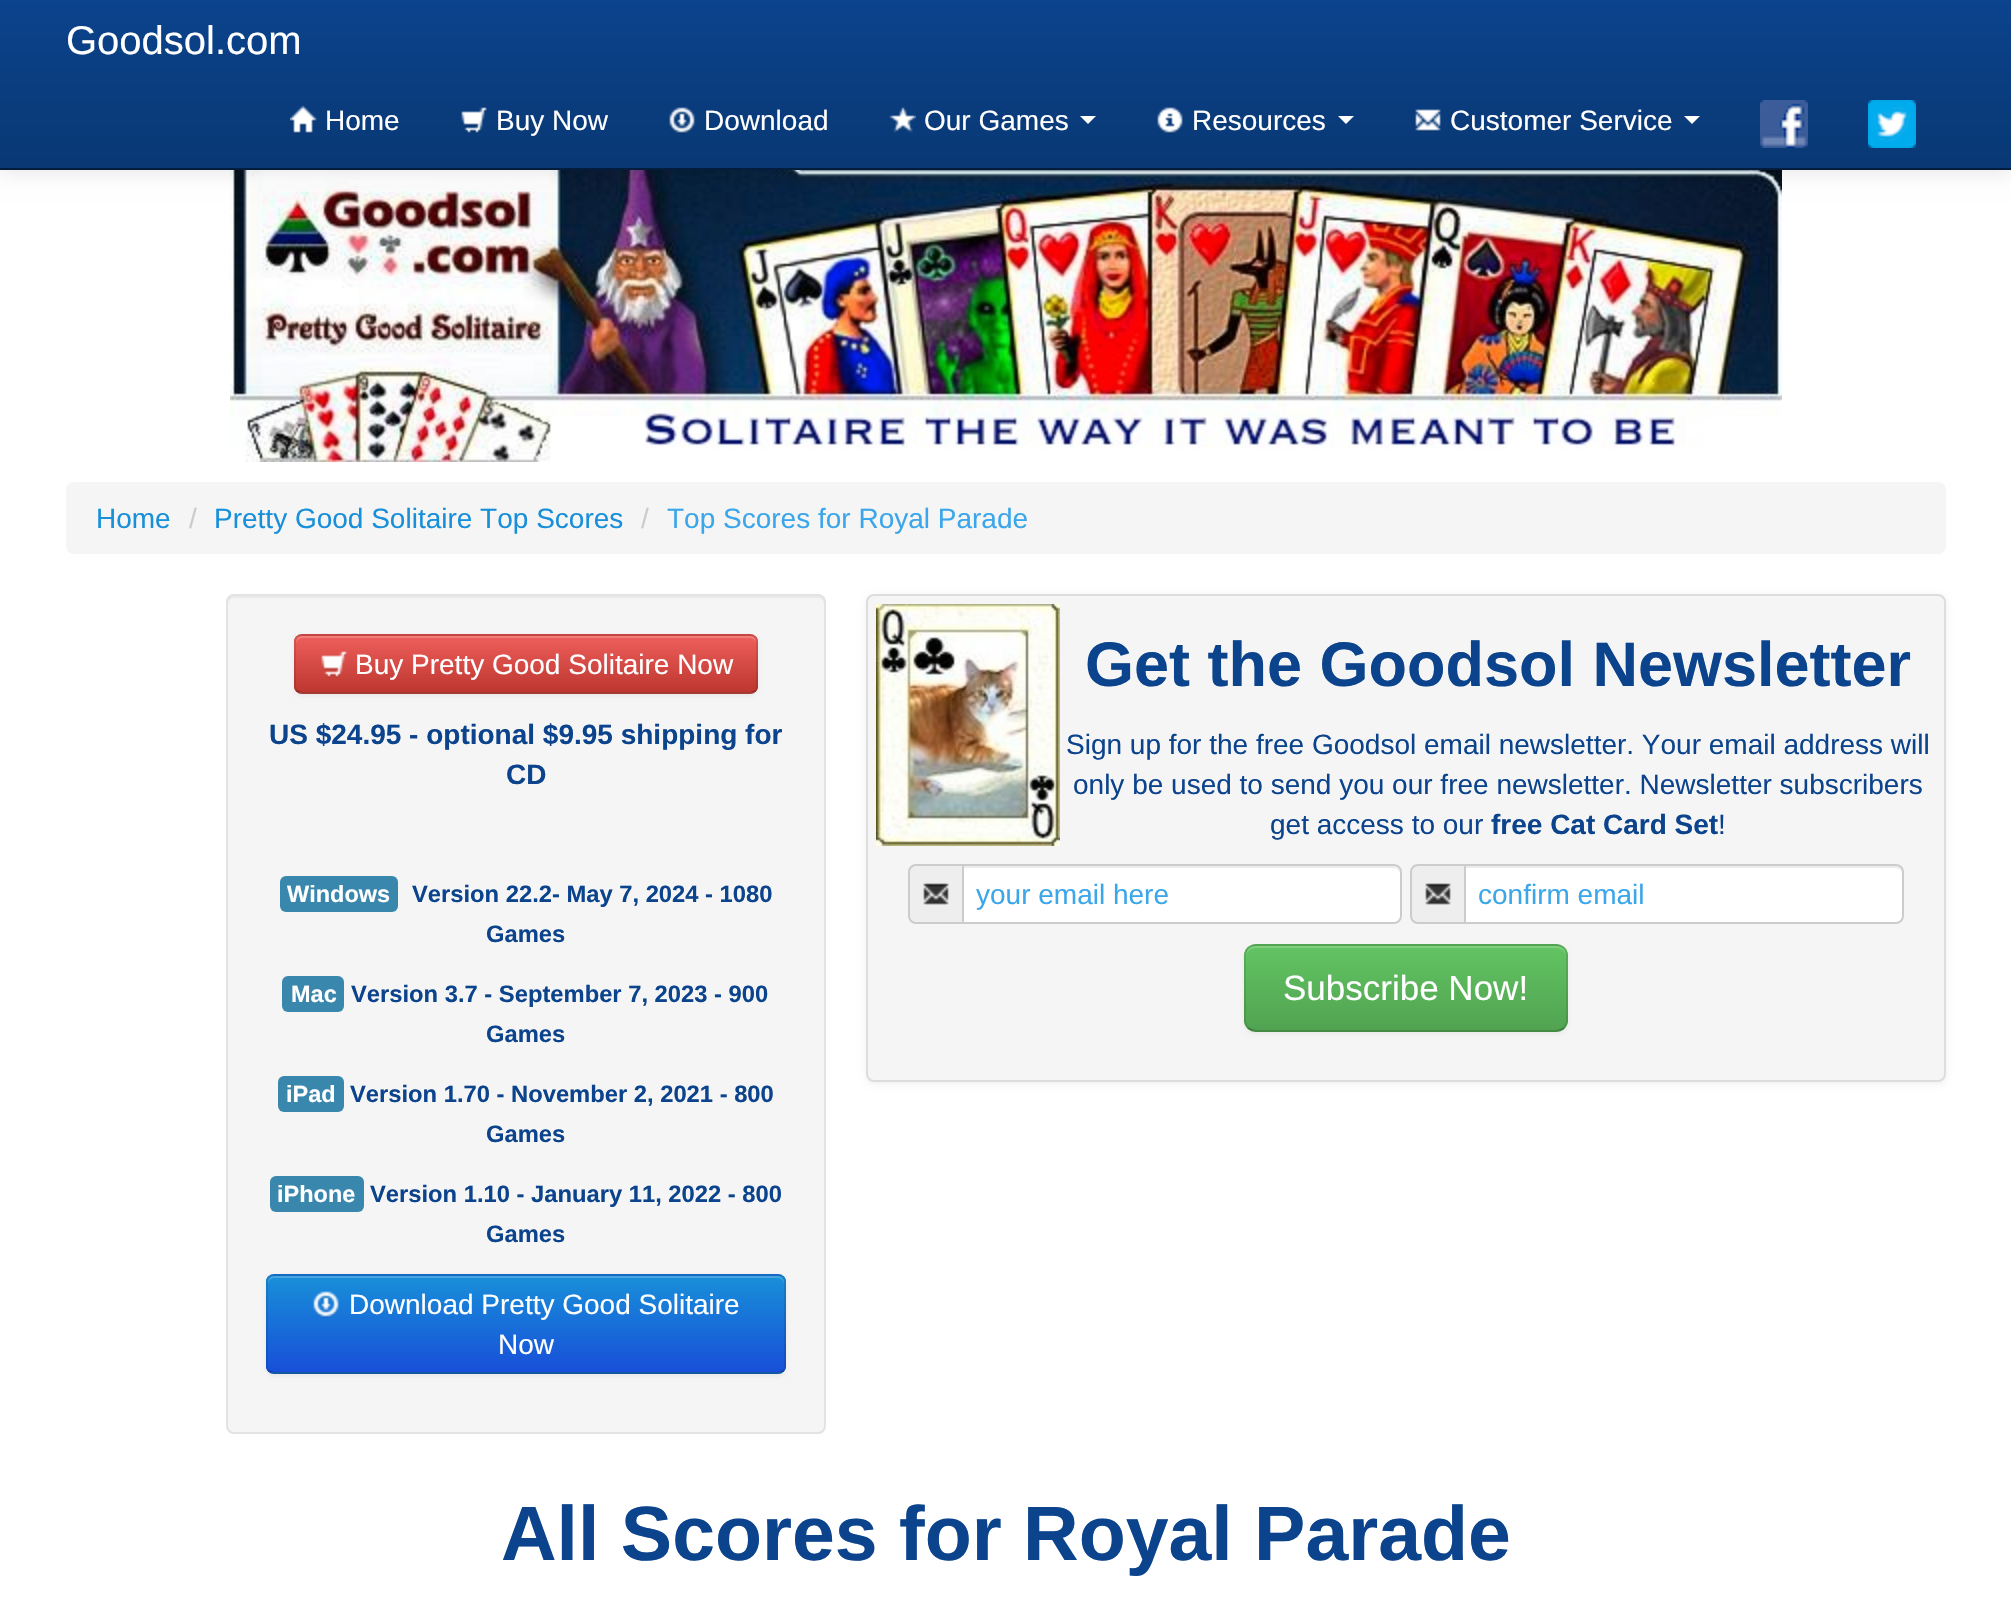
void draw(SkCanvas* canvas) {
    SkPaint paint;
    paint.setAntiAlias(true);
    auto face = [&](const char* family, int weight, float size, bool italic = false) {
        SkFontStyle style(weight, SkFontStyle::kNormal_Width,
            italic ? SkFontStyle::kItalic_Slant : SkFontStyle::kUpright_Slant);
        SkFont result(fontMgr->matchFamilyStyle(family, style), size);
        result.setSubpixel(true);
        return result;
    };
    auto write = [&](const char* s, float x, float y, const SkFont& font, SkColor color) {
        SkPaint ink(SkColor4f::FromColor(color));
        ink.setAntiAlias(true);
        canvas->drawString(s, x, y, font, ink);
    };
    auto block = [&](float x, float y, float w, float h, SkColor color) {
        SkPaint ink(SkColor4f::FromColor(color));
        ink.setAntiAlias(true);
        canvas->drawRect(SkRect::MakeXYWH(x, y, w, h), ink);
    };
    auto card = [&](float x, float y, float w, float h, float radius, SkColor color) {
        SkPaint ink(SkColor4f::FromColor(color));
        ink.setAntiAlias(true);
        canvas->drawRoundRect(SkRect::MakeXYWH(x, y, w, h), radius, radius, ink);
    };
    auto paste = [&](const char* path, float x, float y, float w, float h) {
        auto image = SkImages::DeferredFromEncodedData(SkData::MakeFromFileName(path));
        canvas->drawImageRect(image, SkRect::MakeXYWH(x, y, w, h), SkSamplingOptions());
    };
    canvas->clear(SK_ColorWHITE);
    paste("pic9.png", 230, 170, 1552, 292);
    paint.setColor(SkColorSetARGB(26, 0, 0, 0));
    paint.setMaskFilter(SkMaskFilter::MakeBlur(kNormal_SkBlurStyle, 10));
    canvas->drawRect(SkRect::MakeXYWH(0, 2, 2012, 170), paint);
    paint.setMaskFilter(nullptr);
    {
        const SkColor colors[] = {SkColorSetRGB(11, 67, 140), SkColorSetRGB(9, 56, 116)};
        const float stops[] = {0, 1};
        const SkPoint ends[] = {{1006, 0}, {1006, 168}};
        paint.setShader(SkGradientShader::MakeLinear(ends, colors, stops, 2, SkTileMode::kClamp));
        paint.setAlpha(255);
    }
    canvas->drawRect(SkRect::MakeXYWH(0, 0, 2011, 168), paint);
    block(0, 168, 2011, 2, SkColorSetRGB(5, 29, 60));
    auto kFont1 = face("Liberation Sans", 400, 40);
    write("Goodsol.com", 66, 54, kFont1, SK_ColorWHITE);
    paste("pic1.png", 290, 106, 27, 28);
    auto kFont2 = face("Liberation Sans", 400, 28);
    write("Home", 325, 130, kFont2, SK_ColorWHITE);
    paste("pic2.png", 461, 107, 26, 27);
    write("Buy Now", 496, 130, kFont2, SK_ColorWHITE);
    paste("pic3.png", 669, 107, 26, 27);
    write("Download", 704, 130, kFont2, SK_ColorWHITE);
    paste("pic4.png", 889, 107, 27, 26);
    write("Our Games", 924, 130, kFont2, SK_ColorWHITE);
    paint.setShader(nullptr);
    paint.setColor(SK_ColorWHITE);
    canvas->drawPath(SkPathBuilder().moveTo(1080, 116).lineTo(1096, 116).lineTo(1088, 124).close().detach(), paint);
    paste("pic5.png", 1157, 107, 26, 27);
    write("Resources", 1192, 130, kFont2, SK_ColorWHITE);
    canvas->drawPath(SkPathBuilder().moveTo(1338, 116).lineTo(1354, 116).lineTo(1346, 124).close().detach(), paint);
    paste("pic6.png", 1415, 109, 26, 23);
    write("Customer Service", 1450, 130, kFont2, SK_ColorWHITE);
    canvas->drawPath(SkPathBuilder().moveTo(1684, 116).lineTo(1700, 116).lineTo(1692, 124).close().detach(), paint);
    paste("pic7.png", 1760, 100, 48, 48);
    paste("pic8.png", 1868, 100, 48, 48);
    card(66, 482, 1880, 72, 8, SkColorSetRGB(245, 245, 245));
    write("Home", 96, 528, kFont2, SkColorSetRGB(24, 143, 217));
    write("/", 189, 528, kFont2, SkColorSetRGB(204, 204, 204));
    write("Pretty Good Solitaire Top Scores", 214, 528, kFont2, SkColorSetRGB(24, 143, 217));
    write("/", 641, 528, kFont2, SkColorSetRGB(204, 204, 204));
    write("Top Scores for Royal Parade", 667, 528, kFont2, SkColorSetRGB(59, 166, 233));
    card(226, 594, 600, 840, 8, SkColorSetRGB(245, 245, 245));
    paint.setColor(SkColorSetRGB(233, 233, 233));
    canvas->drawPath(SkPathBuilder().moveTo(234, 598).lineTo(818, 598).cubicTo(821, 598, 824, 601, 824, 604).lineTo(824, 602).cubicTo(824, 599, 821, 596, 818, 596).lineTo(234, 596).cubicTo(231, 596, 228, 599, 228, 602).lineTo(228, 604).cubicTo(228, 601, 231, 598, 234, 598).close().detach(), paint);
    paint.setStyle(SkPaint::kStroke_Style);
    paint.setStrokeWidth(2);
    paint.setColor(SkColorSetRGB(227, 227, 227));
    canvas->drawRoundRect(SkRect::MakeXYWH(227, 595, 598, 838), 7, 7, paint);
    paint.setStyle(SkPaint::kFill_Style);
    paint.setColor(SkColorSetARGB(13, 0, 0, 0));
    paint.setMaskFilter(SkMaskFilter::MakeBlur(kNormal_SkBlurStyle, 2));
    canvas->drawRoundRect(SkRect::MakeXYWH(294, 636, 464, 60), 8, 8, paint);
    paint.setMaskFilter(nullptr);
    card(294, 634, 464, 60, 8, SkColorSetRGB(218, 79, 73));
    canvas->save();
    canvas->clipPath(SkPathBuilder().moveTo(302, 634).lineTo(750, 634).cubicTo(754.5f, 634, 758, 637.5f, 758, 642).lineTo(758, 686).cubicTo(758, 690.5f, 754.5f, 694, 750, 694).lineTo(302, 694).cubicTo(297.5f, 694, 294, 690.5f, 294, 686).lineTo(294, 642).cubicTo(294, 637.5f, 297.5f, 634, 302, 634).close().detach(), true);
    {
        const SkColor colors[] = {SkColorSetRGB(238, 95, 91), SkColorSetRGB(189, 54, 47)};
        const float stops[] = {0, 1};
        const SkPoint ends[] = {{526, 636}, {526, 692}};
        paint.setShader(SkGradientShader::MakeLinear(ends, colors, stops, 2, SkTileMode::kClamp));
        paint.setAlpha(255);
    }
    canvas->drawRect(SkRect::MakeXYWH(294, 636, 464, 56), paint);
    canvas->restore();
    paint.setShader(nullptr);
    paint.setColor(SkColorSetARGB(51, 255, 255, 255));
    canvas->drawPath(SkPathBuilder().moveTo(302, 638).lineTo(750, 638).cubicTo(753, 638, 756, 641, 756, 644).cubicTo(756, 640, 755, 636, 750, 636).lineTo(302, 636).cubicTo(297, 636, 296, 640, 296, 644).cubicTo(296, 641, 299, 638, 302, 638).close().detach(), paint);
    paint.setStyle(SkPaint::kStroke_Style);
    paint.setColor(SkColorSetARGB(64, 0, 0, 0));
    canvas->drawPath(SkPathBuilder().moveTo(755, 691).cubicTo(753.5f, 692.5f, 752, 693, 750, 693).lineTo(302, 693).cubicTo(300, 693, 298.5f, 692.5f, 297, 691).detach(), paint);
    paint.setColor(SkColorSetARGB(26, 0, 0, 0));
    canvas->drawPath(SkPathBuilder().moveTo(297, 691).cubicTo(295.5f, 689.5f, 295, 688, 295, 686).lineTo(295, 642).cubicTo(295, 640, 295.5f, 638.5f, 297, 637).cubicTo(298.5f, 635.5f, 300, 635, 302, 635).lineTo(750, 635).cubicTo(752, 635, 753.5f, 635.5f, 755, 637).cubicTo(756.5f, 638.5f, 757, 640, 757, 642).lineTo(757, 686).cubicTo(757, 688, 756.5f, 689.5f, 755, 691).detach(), paint);
    paste("pic10.png", 321, 651, 26, 27);
    write("Buy Pretty Good Solitaire Now", 355, 674, kFont2, SK_ColorWHITE);
    auto kFont3 = face("Liberation Sans", 700, 28);
    write("US $24.95 - optional $9.95 shipping for", 269, 744, kFont3, SkColorSetRGB(11, 67, 140));
    write("CD", 506, 784, kFont3, SkColorSetRGB(11, 67, 140));
    card(280, 876, 118, 36, 6, SkColorSetRGB(58, 135, 173));
    auto kFont4 = face("Liberation Sans", 700, 23.5f);
    write("Windows", 287, 902, kFont4, SK_ColorWHITE);
    auto kFont5 = face("Liberation Sans", 700, 23.75f);
    write("Version 22.2- May 7, 2024 - 1080", 412, 902, kFont5, SkColorSetRGB(11, 67, 140));
    write("Games", 486, 942, kFont5, SkColorSetRGB(11, 67, 140));
    card(282, 976, 62, 36, 6, SkColorSetRGB(58, 135, 173));
    write("Mac", 291, 1002, kFont4, SK_ColorWHITE);
    write("Version 3.7 - September 7, 2023 - 900", 351, 1002, kFont5, SkColorSetRGB(11, 67, 140));
    write("Games", 486, 1042, kFont5, SkColorSetRGB(11, 67, 140));
    card(278, 1076, 66, 36, 6, SkColorSetRGB(58, 135, 173));
    write("iPad", 286, 1102, kFont4, SK_ColorWHITE);
    write("Version 1.70 - November 2, 2021 - 800", 350, 1102, kFont5, SkColorSetRGB(11, 67, 140));
    write("Games", 486, 1142, kFont5, SkColorSetRGB(11, 67, 140));
    card(270, 1176, 94, 36, 6, SkColorSetRGB(58, 135, 173));
    write("iPhone", 277, 1202, kFont4, SK_ColorWHITE);
    write("Version 1.10 - January 11, 2022 - 800", 370, 1202, kFont5, SkColorSetRGB(11, 67, 140));
    write("Games", 486, 1242, kFont5, SkColorSetRGB(11, 67, 140));
    paint.setStyle(SkPaint::kFill_Style);
    paint.setColor(SkColorSetARGB(13, 0, 0, 0));
    paint.setMaskFilter(SkMaskFilter::MakeBlur(kNormal_SkBlurStyle, 2));
    canvas->drawRoundRect(SkRect::MakeXYWH(266, 1276, 520, 100), 8, 8, paint);
    paint.setMaskFilter(nullptr);
    card(266, 1274, 520, 100, 8, SkColorSetRGB(24, 117, 217));
    canvas->save();
    canvas->clipPath(SkPathBuilder().moveTo(274, 1274).lineTo(778, 1274).cubicTo(782.5f, 1274, 786, 1277.5f, 786, 1282).lineTo(786, 1366).cubicTo(786, 1370.5f, 782.5f, 1374, 778, 1374).lineTo(274, 1374).cubicTo(269.5f, 1374, 266, 1370.5f, 266, 1366).lineTo(266, 1282).cubicTo(266, 1277.5f, 269.5f, 1274, 274, 1274).close().detach(), true);
    {
        const SkColor colors[] = {SkColorSetRGB(24, 143, 217), SkColorSetRGB(24, 79, 217)};
        const float stops[] = {0, 1};
        const SkPoint ends[] = {{526, 1276}, {526, 1372}};
        paint.setShader(SkGradientShader::MakeLinear(ends, colors, stops, 2, SkTileMode::kClamp));
        paint.setAlpha(255);
    }
    canvas->drawRect(SkRect::MakeXYWH(266, 1276, 520, 96), paint);
    canvas->restore();
    paint.setShader(nullptr);
    paint.setColor(SkColorSetARGB(51, 255, 255, 255));
    canvas->drawPath(SkPathBuilder().moveTo(274, 1278).lineTo(778, 1278).cubicTo(781, 1278, 784, 1281, 784, 1284).lineTo(784, 1282).cubicTo(784, 1279, 781, 1276, 778, 1276).lineTo(274, 1276).cubicTo(271, 1276, 268, 1279, 268, 1282).lineTo(268, 1284).cubicTo(268, 1281, 271, 1278, 274, 1278).close().detach(), paint);
    paint.setStyle(SkPaint::kStroke_Style);
    paint.setColor(SkColorSetARGB(64, 0, 0, 0));
    canvas->drawPath(SkPathBuilder().moveTo(783, 1371).cubicTo(781.5f, 1372.5f, 780, 1373, 778, 1373).lineTo(274, 1373).cubicTo(272, 1373, 270.5f, 1372.5f, 269, 1371).detach(), paint);
    paint.setColor(SkColorSetARGB(26, 0, 0, 0));
    canvas->drawPath(SkPathBuilder().moveTo(269, 1371).cubicTo(267.5f, 1369.5f, 267, 1368, 267, 1366).lineTo(267, 1282).cubicTo(267, 1280, 267.5f, 1278.5f, 269, 1277).cubicTo(270.5f, 1275.5f, 272, 1275, 274, 1275).lineTo(778, 1275).cubicTo(780, 1275, 781.5f, 1275.5f, 783, 1277).cubicTo(784.5f, 1278.5f, 785, 1280, 785, 1282).lineTo(785, 1366).cubicTo(785, 1368, 784.5f, 1369.5f, 783, 1371).detach(), paint);
    paste("pic11.png", 313, 1291, 26, 27);
    write("Download Pretty Good Solitaire", 349, 1314, kFont2, SK_ColorWHITE);
    write("Now", 498, 1354, kFont2, SK_ColorWHITE);
    paint.setStyle(SkPaint::kFill_Style);
    paint.setColor(SkColorSetARGB(15, 0, 0, 0));
    paint.setMaskFilter(SkMaskFilter::MakeBlur(kNormal_SkBlurStyle, 3));
    canvas->drawRoundRect(SkRect::MakeXYWH(866, 596, 1080, 488), 8, 8, paint);
    paint.setMaskFilter(nullptr);
    paint.setColor(SkColorSetRGB(245, 245, 245));
    canvas->drawRoundRect(SkRect::MakeXYWH(867, 595, 1078, 486), 7, 7, paint);
    paint.setStyle(SkPaint::kStroke_Style);
    paint.setColor(SkColorSetRGB(221, 221, 221));
    canvas->drawRoundRect(SkRect::MakeXYWH(867, 595, 1078, 486), 7, 7, paint);
    paste("pic12.png", 876, 604, 184, 242);
    auto kFont6 = face("Liberation Sans", 700, 63);
    write("Get the Goodsol Newsletter", 1085, 686, kFont6, SkColorSetRGB(11, 67, 140));
    write("Sign up for the free Goodsol email newsletter. Your email address will", 1066, 754, kFont2, SkColorSetRGB(11, 67, 140));
    write("only be used to send you our free newsletter. Newsletter subscribers", 1073, 794, kFont2, SkColorSetRGB(11, 67, 140));
    write("get access to our", 1270, 834, kFont2, SkColorSetRGB(11, 67, 140));
    write("free Cat Card Set", 1491, 834, kFont3, SkColorSetRGB(11, 67, 140));
    write("!", 1718, 834, kFont2, SkColorSetRGB(11, 67, 140));
    paint.setStyle(SkPaint::kFill_Style);
    paint.setColor(SkColorSetRGB(238, 238, 238));
    canvas->drawPath(SkPathBuilder().moveTo(916, 865).lineTo(963, 865).lineTo(963, 923).lineTo(916, 923).cubicTo(912, 923, 909, 920, 909, 916).lineTo(909, 872).cubicTo(909, 868, 912, 865, 916, 865).close().detach(), paint);
    paint.setStyle(SkPaint::kStroke_Style);
    paint.setColor(SkColorSetRGB(204, 204, 204));
    canvas->drawPath(SkPathBuilder().moveTo(916, 865).lineTo(963, 865).lineTo(963, 923).lineTo(916, 923).cubicTo(912, 923, 909, 920, 909, 916).lineTo(909, 872).cubicTo(909, 868, 912, 865, 916, 865).close().detach(), paint);
    paste("pic13.png", 923, 883, 26, 22);
    paint.setStyle(SkPaint::kFill_Style);
    paint.setColor(SK_ColorWHITE);
    canvas->drawPath(SkPathBuilder().moveTo(962, 864).lineTo(1394, 864).cubicTo(1398.5f, 864, 1402, 867.5f, 1402, 872).lineTo(1402, 916).cubicTo(1402, 920.5f, 1398.5f, 924, 1394, 924).lineTo(962, 924).close().detach(), paint);
    paint.setColor(SkColorSetRGB(236, 236, 236));
    canvas->drawPath(SkPathBuilder().moveTo(964, 868).lineTo(1394, 868).cubicTo(1397, 868, 1400, 871, 1400, 874).lineTo(1400, 872).cubicTo(1400, 869, 1397, 866, 1394, 866).lineTo(964, 866).close().detach(), paint);
    paint.setStyle(SkPaint::kStroke_Style);
    paint.setColor(SkColorSetRGB(204, 204, 204));
    canvas->drawPath(SkPathBuilder().moveTo(963, 865).lineTo(1394, 865).cubicTo(1398, 865, 1401, 868, 1401, 872).lineTo(1401, 916).cubicTo(1401, 920, 1398, 923, 1394, 923).lineTo(963, 923).close().detach(), paint);
    write("your email here", 976, 904, kFont2, SkColorSetRGB(59, 166, 233));
    paint.setStyle(SkPaint::kFill_Style);
    paint.setColor(SkColorSetRGB(238, 238, 238));
    canvas->drawPath(SkPathBuilder().moveTo(1418, 865).lineTo(1465, 865).lineTo(1465, 923).lineTo(1418, 923).cubicTo(1414, 923, 1411, 920, 1411, 916).lineTo(1411, 872).cubicTo(1411, 868, 1414, 865, 1418, 865).close().detach(), paint);
    paint.setStyle(SkPaint::kStroke_Style);
    paint.setColor(SkColorSetRGB(204, 204, 204));
    canvas->drawPath(SkPathBuilder().moveTo(1418, 865).lineTo(1465, 865).lineTo(1465, 923).lineTo(1418, 923).cubicTo(1414, 923, 1411, 920, 1411, 916).lineTo(1411, 872).cubicTo(1411, 868, 1414, 865, 1418, 865).close().detach(), paint);
    paste("pic13.png", 1425, 883, 26, 22);
    paint.setStyle(SkPaint::kFill_Style);
    paint.setColor(SK_ColorWHITE);
    canvas->drawPath(SkPathBuilder().moveTo(1464, 864).lineTo(1896, 864).cubicTo(1900.5f, 864, 1904, 867.5f, 1904, 872).lineTo(1904, 916).cubicTo(1904, 920.5f, 1900.5f, 924, 1896, 924).lineTo(1464, 924).close().detach(), paint);
    paint.setColor(SkColorSetRGB(236, 236, 236));
    canvas->drawPath(SkPathBuilder().moveTo(1466, 868).lineTo(1896, 868).cubicTo(1899, 868, 1902, 871, 1902, 874).lineTo(1902, 872).cubicTo(1902, 869, 1899, 866, 1896, 866).lineTo(1466, 866).close().detach(), paint);
    paint.setStyle(SkPaint::kStroke_Style);
    paint.setColor(SkColorSetRGB(204, 204, 204));
    canvas->drawPath(SkPathBuilder().moveTo(1465, 865).lineTo(1896, 865).cubicTo(1900, 865, 1903, 868, 1903, 872).lineTo(1903, 916).cubicTo(1903, 920, 1900, 923, 1896, 923).lineTo(1465, 923).close().detach(), paint);
    write("confirm email", 1478, 904, kFont2, SkColorSetRGB(59, 166, 233));
    paint.setStyle(SkPaint::kFill_Style);
    paint.setColor(SkColorSetARGB(13, 0, 0, 0));
    paint.setMaskFilter(SkMaskFilter::MakeBlur(kNormal_SkBlurStyle, 2));
    canvas->drawRoundRect(SkRect::MakeXYWH(1244, 946, 324, 88), 12, 12, paint);
    paint.setMaskFilter(nullptr);
    card(1244, 944, 324, 88, 12, SkColorSetRGB(91, 183, 91));
    canvas->save();
    canvas->clipPath(SkPathBuilder().moveTo(1256, 944).lineTo(1556, 944).cubicTo(1562.5f, 944, 1568, 949.5f, 1568, 956).lineTo(1568, 1020).cubicTo(1568, 1026.5f, 1562.5f, 1032, 1556, 1032).lineTo(1256, 1032).cubicTo(1249.5f, 1032, 1244, 1026.5f, 1244, 1020).lineTo(1244, 956).cubicTo(1244, 949.5f, 1249.5f, 944, 1256, 944).close().detach(), true);
    {
        const SkColor colors[] = {SkColorSetRGB(98, 196, 98), SkColorSetRGB(81, 163, 81)};
        const float stops[] = {0, 1};
        const SkPoint ends[] = {{1406, 946}, {1406, 1030}};
        paint.setShader(SkGradientShader::MakeLinear(ends, colors, stops, 2, SkTileMode::kClamp));
        paint.setAlpha(255);
    }
    canvas->drawRect(SkRect::MakeXYWH(1244, 946, 324, 84), paint);
    canvas->restore();
    paint.setShader(nullptr);
    paint.setColor(SkColorSetARGB(51, 255, 255, 255));
    canvas->drawPath(SkPathBuilder().moveTo(1256, 948).lineTo(1556, 948).cubicTo(1562, 948, 1566, 952, 1566, 958).lineTo(1566, 956).cubicTo(1566, 950, 1562, 946, 1556, 946).lineTo(1256, 946).cubicTo(1250, 946, 1246, 950, 1246, 956).lineTo(1246, 958).cubicTo(1246, 952, 1250, 948, 1256, 948).close().detach(), paint);
    paint.setStyle(SkPaint::kStroke_Style);
    paint.setColor(SkColorSetARGB(64, 0, 0, 0));
    canvas->drawPath(SkPathBuilder().moveTo(1564, 1028).cubicTo(1561.5f, 1030, 1559, 1031, 1556, 1031).lineTo(1256, 1031).cubicTo(1253, 1031, 1250.5f, 1030, 1248, 1028).detach(), paint);
    paint.setColor(SkColorSetARGB(26, 0, 0, 0));
    canvas->drawPath(SkPathBuilder().moveTo(1248, 1028).cubicTo(1246, 1025.5f, 1245, 1023, 1245, 1020).lineTo(1245, 956).cubicTo(1245, 953, 1246, 950.5f, 1248, 948).cubicTo(1250.5f, 946, 1253, 945, 1256, 945).lineTo(1556, 945).cubicTo(1559, 945, 1561.5f, 946, 1564, 948).cubicTo(1566, 950.5f, 1567, 953, 1567, 956).lineTo(1567, 1020).cubicTo(1567, 1023, 1566, 1025.5f, 1564, 1028).detach(), paint);
    auto kFont7 = face("Liberation Sans", 400, 35);
    write("Subscribe Now!", 1283, 1000, kFont7, SK_ColorWHITE);
    auto kFont8 = face("Liberation Sans", 700, 77);
    write("All Scores for Royal Parade", 501, 1560, kFont8, SkColorSetRGB(11, 67, 140));
}
